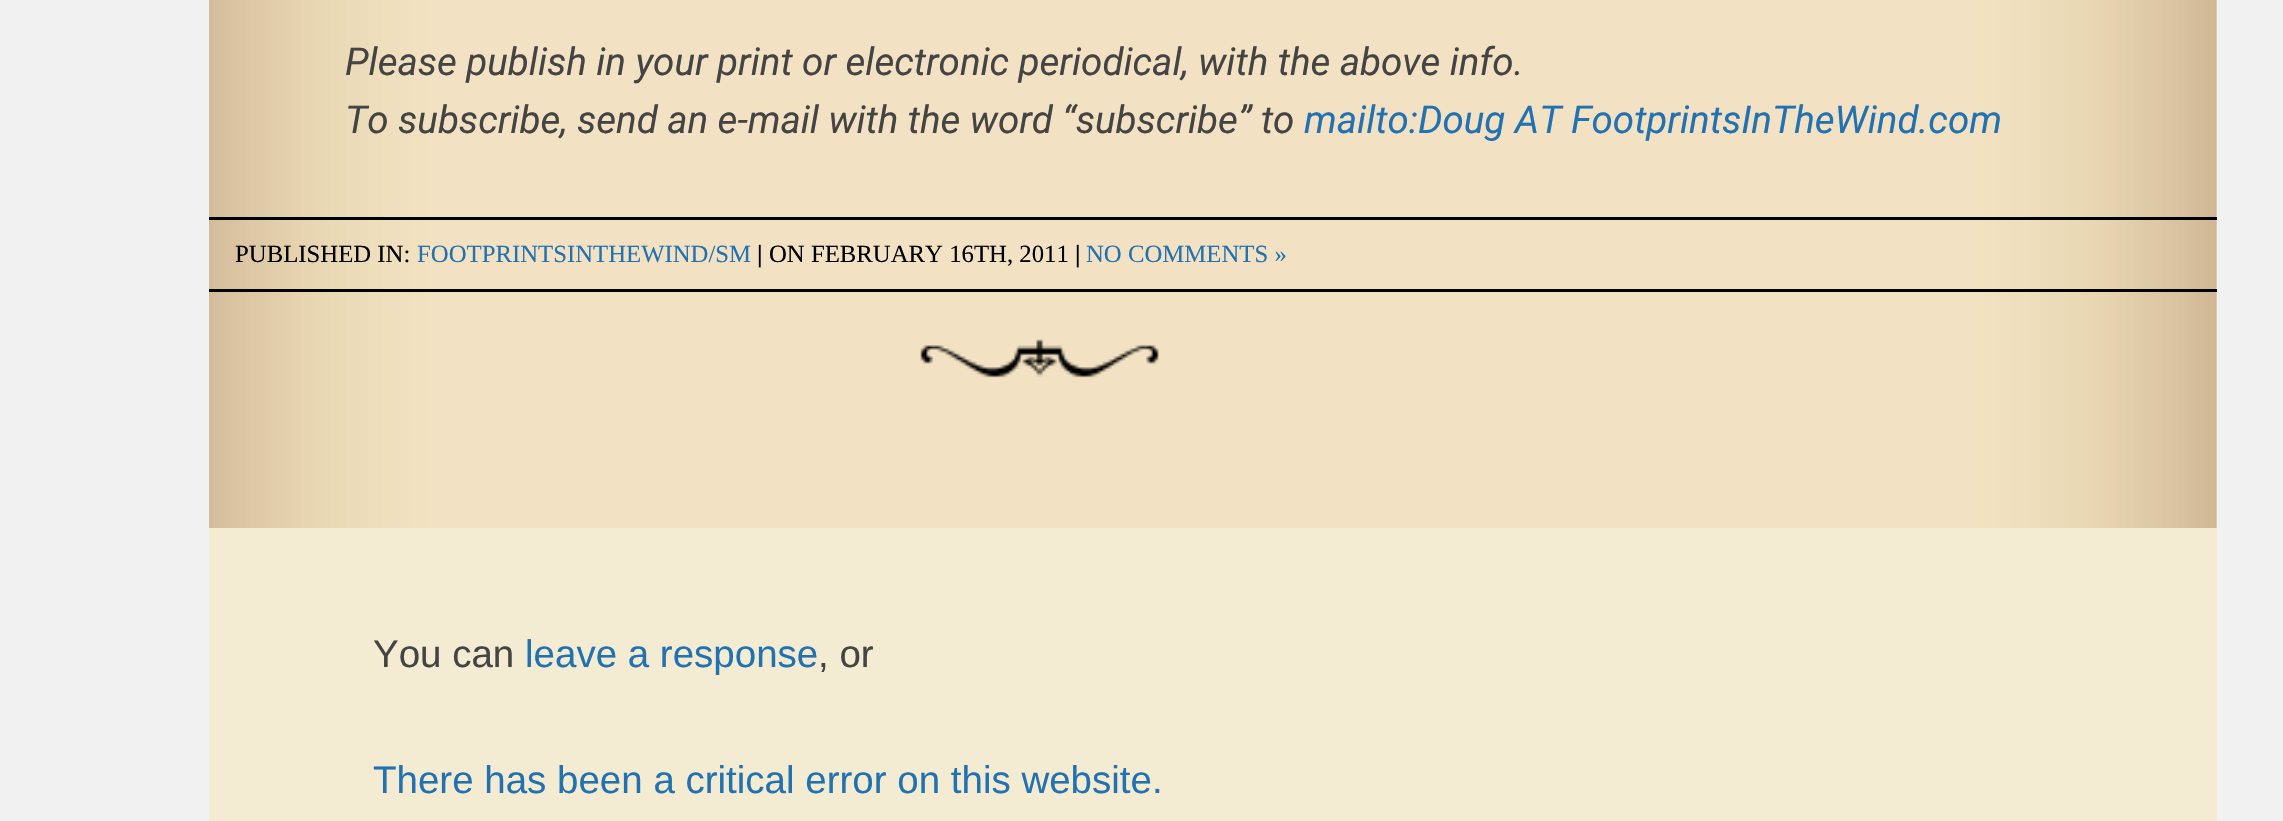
void draw(SkCanvas* canvas) {
    SkPaint paint;
    paint.setAntiAlias(true);
    auto face = [&](const char* family, int weight, float size, bool italic = false) {
        SkFontStyle style(weight, SkFontStyle::kNormal_Width,
            italic ? SkFontStyle::kItalic_Slant : SkFontStyle::kUpright_Slant);
        SkFont result(fontMgr->matchFamilyStyle(family, style), size);
        result.setSubpixel(true);
        return result;
    };
    auto write = [&](const char* s, float x, float y, const SkFont& font, SkColor color) {
        SkPaint ink(SkColor4f::FromColor(color));
        ink.setAntiAlias(true);
        canvas->drawString(s, x, y, font, ink);
    };
    auto block = [&](float x, float y, float w, float h, SkColor color) {
        SkPaint ink(SkColor4f::FromColor(color));
        ink.setAntiAlias(true);
        canvas->drawRect(SkRect::MakeXYWH(x, y, w, h), ink);
    };
    auto paste = [&](const char* path, float x, float y, float w, float h) {
        auto image = SkImages::DeferredFromEncodedData(SkData::MakeFromFileName(path));
        canvas->drawImageRect(image, SkRect::MakeXYWH(x, y, w, h), SkSamplingOptions());
    };
    canvas->clear(SkColorSetRGB(241, 241, 241));
    block(2216, 0, 1, 528, SkColorSetRGB(242, 226, 193));
    paste("pic1.png", 209, 0, 2008, 528);
    auto kFont1 = face("Roboto", 400, 38.5f, true);
    write("Please publish in your print or electronic periodical, with the above info.", 345, 75, kFont1, SkColorSetRGB(68, 68, 68));
    write("To subscribe, send an e-mail with the word “subscribe” to", 345, 133, kFont1, SkColorSetRGB(68, 68, 68));
    write("mailto:Doug AT FootprintsInTheWind.com", 1304, 133, kFont1, SkColorSetRGB(34, 113, 177));
    block(209, 217, 2008, 3, SK_ColorBLACK);
    block(209, 289, 2008, 3, SK_ColorBLACK);
    auto kFont2 = face("Liberation Serif", 400, 24.75f);
    write("PUBLISHED IN:", 235, 262, kFont2, SK_ColorBLACK);
    write("FOOTPRINTSINTHEWIND/SM", 417, 262, kFont2, SkColorSetRGB(34, 113, 177));
    auto kFont3 = face("Liberation Serif", 700, 24.75f);
    write("|", 757, 262, kFont3, SK_ColorBLACK);
    write("ON FEBRUARY 16TH, 2011", 769, 262, kFont2, SK_ColorBLACK);
    write("|", 1075, 262, kFont3, SK_ColorBLACK);
    write("NO COMMENTS »", 1086, 262, kFont2, SkColorSetRGB(34, 113, 177));
    paste("pic2.png", 920, 339, 239, 39);
    block(209, 528, 2008, 293, SkColorSetRGB(244, 236, 210));
    auto kFont4 = face("Liberation Sans", 400, 38.5f);
    write("You can", 373, 667, kFont4, SkColorSetRGB(68, 68, 68));
    write("leave a response", 525, 667, kFont4, SkColorSetRGB(34, 113, 177));
    write(", or", 818, 667, kFont4, SkColorSetRGB(68, 68, 68));
    write("There has been a critical error on this website.", 373, 793, kFont4, SkColorSetRGB(34, 113, 177));
}
